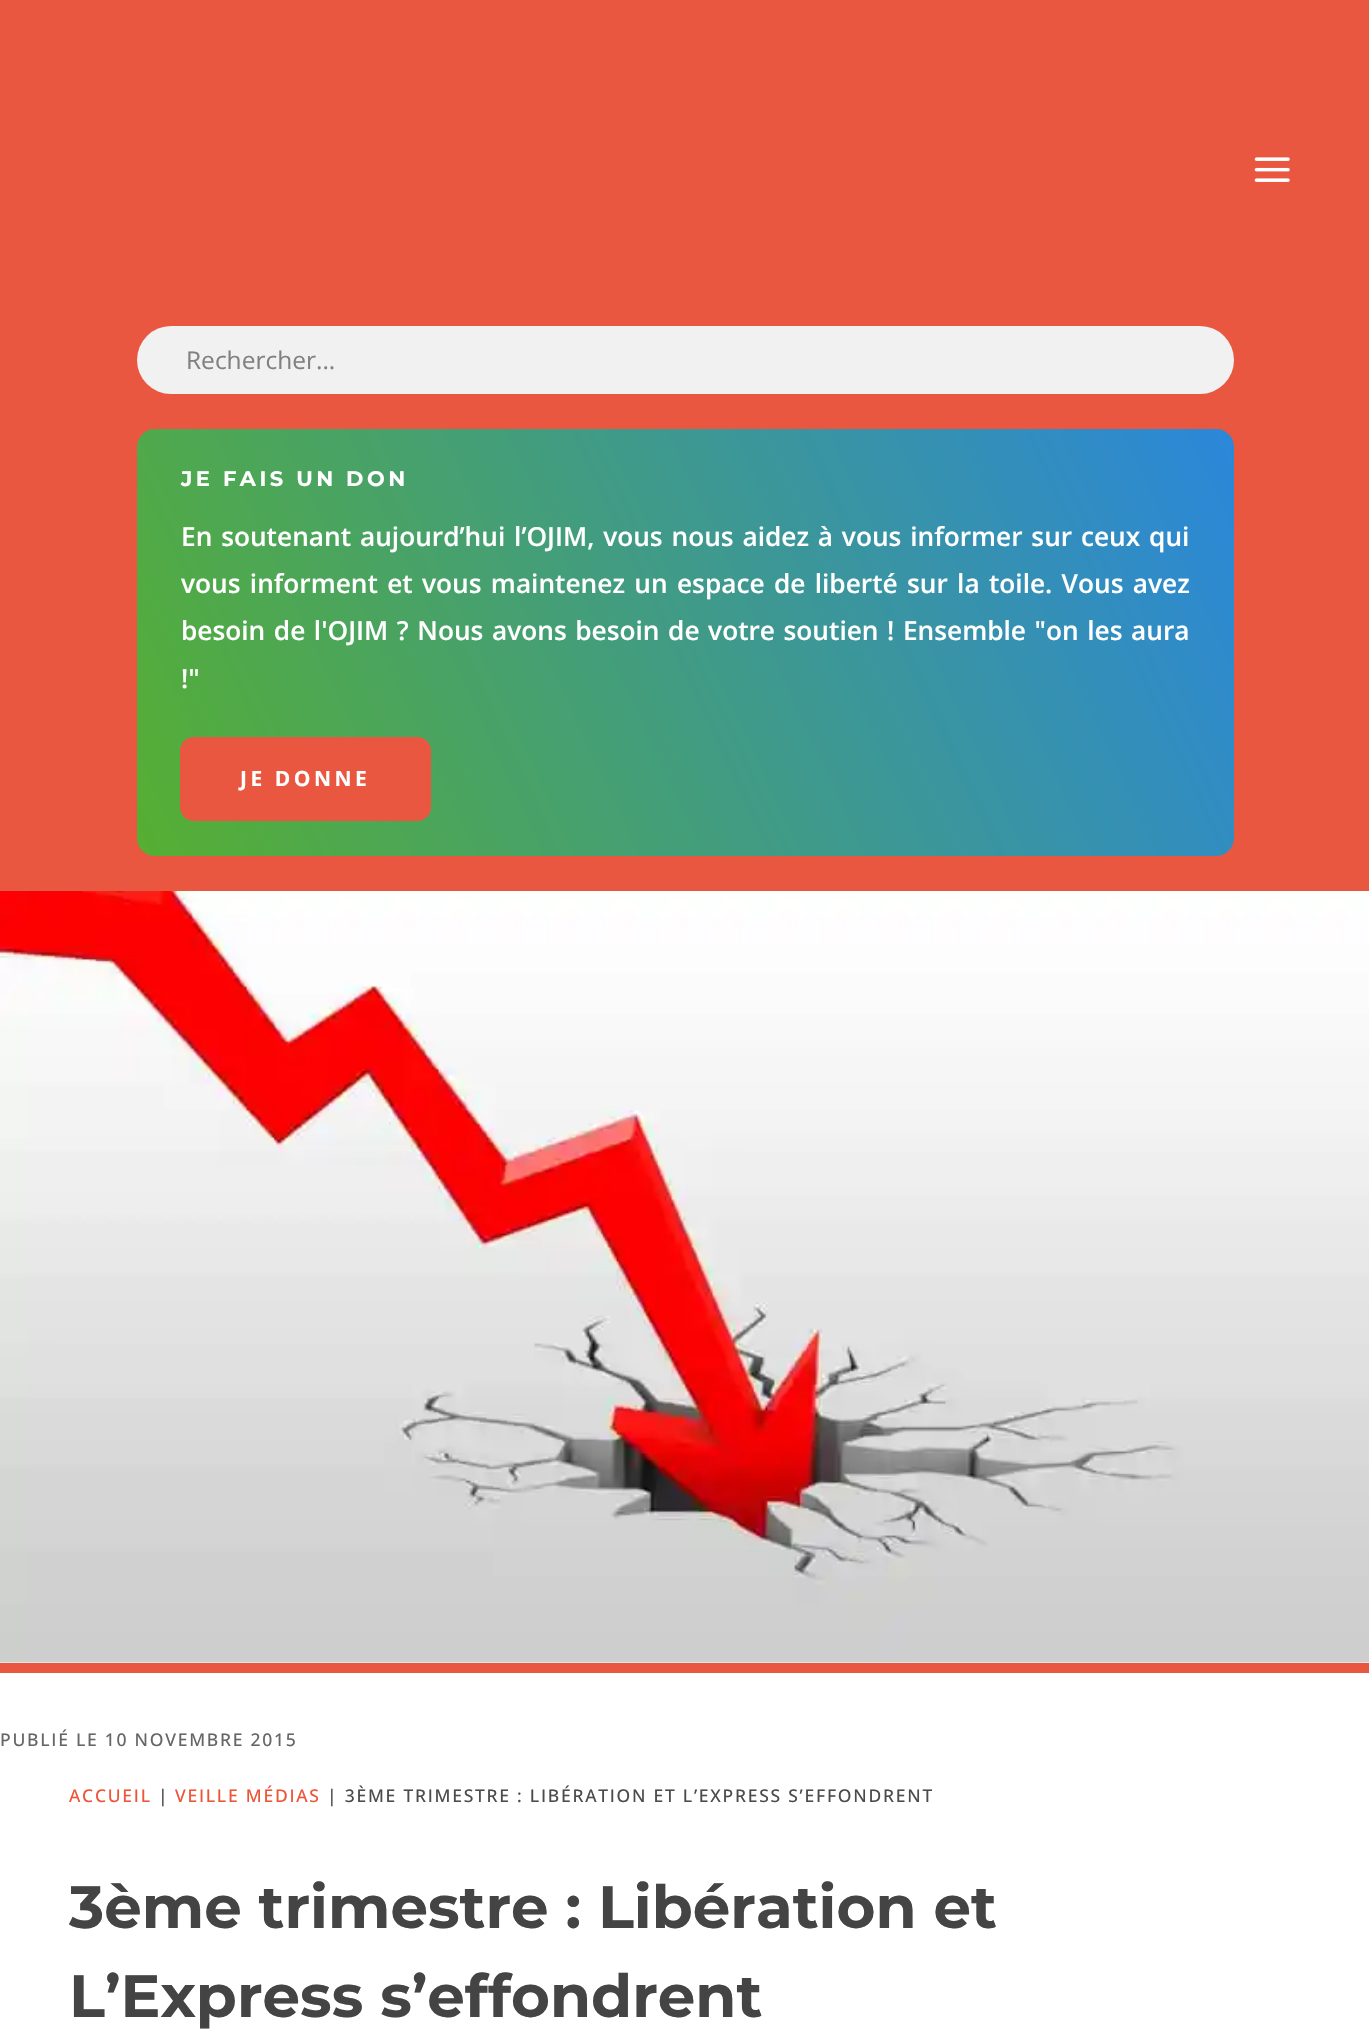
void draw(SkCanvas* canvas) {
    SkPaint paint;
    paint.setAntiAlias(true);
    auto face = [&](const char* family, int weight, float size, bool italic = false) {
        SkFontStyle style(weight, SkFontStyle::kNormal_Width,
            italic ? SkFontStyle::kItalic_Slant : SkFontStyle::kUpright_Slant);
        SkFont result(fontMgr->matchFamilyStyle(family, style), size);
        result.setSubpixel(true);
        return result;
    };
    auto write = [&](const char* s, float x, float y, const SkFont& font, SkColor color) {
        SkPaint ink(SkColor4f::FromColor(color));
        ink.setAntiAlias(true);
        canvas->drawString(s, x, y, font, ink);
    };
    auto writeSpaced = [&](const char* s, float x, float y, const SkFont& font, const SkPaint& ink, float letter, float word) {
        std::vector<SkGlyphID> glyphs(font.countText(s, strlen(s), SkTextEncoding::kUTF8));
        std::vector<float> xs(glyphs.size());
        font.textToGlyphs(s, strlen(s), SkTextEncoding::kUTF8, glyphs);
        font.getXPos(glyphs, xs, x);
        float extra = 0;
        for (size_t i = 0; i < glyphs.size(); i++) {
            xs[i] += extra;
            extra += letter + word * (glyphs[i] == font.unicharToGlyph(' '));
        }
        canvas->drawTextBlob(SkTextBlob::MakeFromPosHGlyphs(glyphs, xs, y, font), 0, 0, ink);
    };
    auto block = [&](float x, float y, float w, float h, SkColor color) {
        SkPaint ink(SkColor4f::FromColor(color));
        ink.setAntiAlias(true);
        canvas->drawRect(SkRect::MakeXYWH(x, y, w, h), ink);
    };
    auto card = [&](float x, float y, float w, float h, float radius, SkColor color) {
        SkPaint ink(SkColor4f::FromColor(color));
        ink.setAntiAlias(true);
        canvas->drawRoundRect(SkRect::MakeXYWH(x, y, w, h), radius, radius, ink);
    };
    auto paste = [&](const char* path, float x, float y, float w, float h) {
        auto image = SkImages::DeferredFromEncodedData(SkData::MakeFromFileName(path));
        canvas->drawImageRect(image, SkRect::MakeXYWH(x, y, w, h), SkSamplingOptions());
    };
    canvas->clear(SK_ColorWHITE);
    block(0, 0, 1369, 891, SkColorSetRGB(233, 87, 64));
    paste("pic1.png", 1254, 157, 36, 25);
    card(137, 326, 1097, 68, 34, SkColorSetRGB(241, 241, 241));
    auto kFont1 = face("Open Sans", 400, 24.5f);
    write("Rechercher...", 186, 369, kFont1, SkColorSetRGB(129, 129, 129));
    {
        const SkColor colors[] = {SkColorSetRGB(43, 135, 218), SkColorSetRGB(86, 175, 49)};
        const float stops[] = {0, 1};
        const SkPoint ends[] = {{1218, 394}, {153, 891}};
        paint.setShader(SkGradientShader::MakeLinear(ends, colors, stops, 2, SkTileMode::kClamp));
        paint.setAlpha(255);
    }
    canvas->drawRoundRect(SkRect::MakeXYWH(137, 429, 1097, 427), 18, 18, paint);
    auto kFont2 = face("Montserrat", 700, 21);
    paint.setShader(nullptr);
    paint.setColor(SK_ColorWHITE);
    writeSpaced("JE FAIS UN DON", 181, 486, kFont2, paint, 3.5f, 0);
    auto kFont3 = face("Open Sans", 600, 26.25f);
    writeSpaced("En soutenant aujourd’hui l’OJIM, vous nous aidez à vous informer sur ceux qui", 181, 546, kFont3, paint, 0, 2);
    writeSpaced("vous informent et vous maintenez un espace de liberté sur la toile. Vous avez", 181, 593, kFont3, paint, 0, 2.5f);
    writeSpaced("besoin de l'OJIM ? Nous avons besoin de votre soutien ! Ensemble \"on les aura", 181, 640, kFont3, paint, 0, 1.75f);
    write("!\"", 181, 688, kFont3, SK_ColorWHITE);
    paint.setColor(SkColorSetRGB(233, 87, 64));
    canvas->drawRoundRect(SkRect::MakeXYWH(183.5f, 740.5f, 244, 77), 10.5f, 10.5f, paint);
    paint.setStyle(SkPaint::kStroke_Style);
    paint.setStrokeWidth(7);
    canvas->drawRoundRect(SkRect::MakeXYWH(183.5f, 740.5f, 244, 77), 10.5f, 10.5f, paint);
    auto kFont4 = face("Open Sans", 700, 21);
    paint.setStyle(SkPaint::kFill_Style);
    paint.setColor(SK_ColorWHITE);
    writeSpaced("JE DONNE", 240, 786, kFont4, paint, 3.5f, 0);
    block(0, 1663, 1369, 10, SkColorSetRGB(233, 87, 64));
    paste("pic2.png", 0, 891, 1369, 772);
    auto kFont5 = face("Open Sans", 500, 17.5f);
    paint.setColor(SkColorSetRGB(102, 102, 102));
    writeSpaced("PUBLIÉ LE 10 NOVEMBRE 2015", 0, 1746, kFont5, paint, 1.75f, 0);
    paint.setColor(SkColorSetRGB(237, 85, 57));
    writeSpaced("ACCUEIL", 69, 1802, kFont5, paint, 1.75f, 0);
    paint.setColor(SkColorSetRGB(76, 76, 76));
    writeSpaced("|", 158, 1802, kFont5, paint, 1.75f, 0);
    paint.setColor(SkColorSetRGB(237, 85, 57));
    writeSpaced("VEILLE MÉDIAS", 175, 1802, kFont5, paint, 1.75f, 0);
    paint.setColor(SkColorSetRGB(76, 76, 76));
    writeSpaced("| 3ÈME TRIMESTRE : LIBÉRATION ET L’EXPRESS S’EFFONDRENT", 327, 1802, kFont5, paint, 1.75f, 0);
    auto kFont6 = face("Montserrat", 700, 59.5f);
    write("3ème trimestre : Libération et", 69, 1928, kFont6, SkColorSetRGB(68, 68, 68));
    write("L’Express s’effondrent", 69, 2017, kFont6, SkColorSetRGB(68, 68, 68));
}
